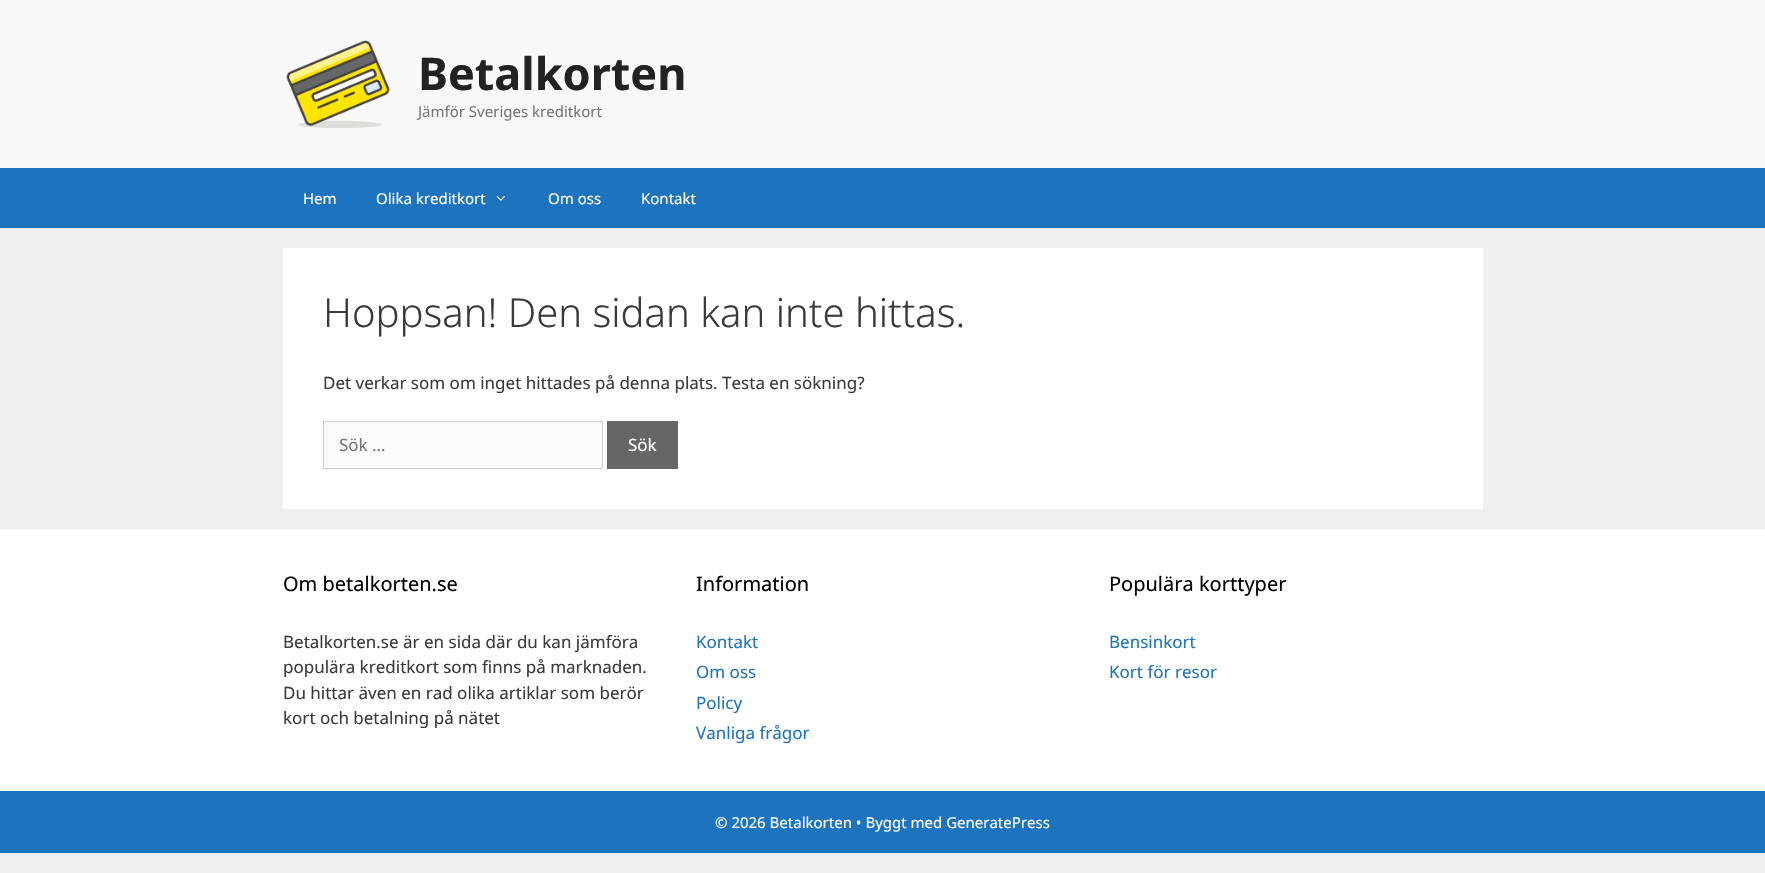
void draw(SkCanvas* canvas) {
    SkPaint paint;
    paint.setAntiAlias(true);
    auto face = [&](const char* family, int weight, float size, bool italic = false) {
        SkFontStyle style(weight, SkFontStyle::kNormal_Width,
            italic ? SkFontStyle::kItalic_Slant : SkFontStyle::kUpright_Slant);
        SkFont result(fontMgr->matchFamilyStyle(family, style), size);
        result.setSubpixel(true);
        return result;
    };
    auto write = [&](const char* s, float x, float y, const SkFont& font, SkColor color) {
        SkPaint ink(SkColor4f::FromColor(color));
        ink.setAntiAlias(true);
        canvas->drawString(s, x, y, font, ink);
    };
    auto block = [&](float x, float y, float w, float h, SkColor color) {
        SkPaint ink(SkColor4f::FromColor(color));
        ink.setAntiAlias(true);
        canvas->drawRect(SkRect::MakeXYWH(x, y, w, h), ink);
    };
    auto paste = [&](const char* path, float x, float y, float w, float h) {
        auto image = SkImages::DeferredFromEncodedData(SkData::MakeFromFileName(path));
        canvas->drawImageRect(image, SkRect::MakeXYWH(x, y, w, h), SkSamplingOptions());
    };
    canvas->clear(SkColorSetRGB(239, 239, 239));
    block(0, 0, 1765, 168, SkColorSetRGB(248, 248, 248));
    paste("pic1.png", 286, 40, 104, 88);
    auto kFont1 = face("Noto Sans", 700, 45);
    write("Betalkorten", 418, 90, kFont1, SkColorSetRGB(34, 34, 34));
    auto kFont2 = face("Noto Sans", 400, 15);
    write("Jämför Sveriges kreditkort", 418, 117, kFont2, SkColorSetRGB(117, 117, 117));
    block(0, 168, 1765, 60, SkColorSetRGB(30, 115, 190));
    write("Hem", 303, 204, kFont2, SK_ColorWHITE);
    write("Olika kreditkort", 376, 204, kFont2, SK_ColorWHITE);
    paste("pic2.png", 496, 196, 9, 5);
    write("Om oss", 548, 204, kFont2, SK_ColorWHITE);
    write("Kontakt", 641, 204, kFont2, SK_ColorWHITE);
    block(283, 248, 1200, 261, SK_ColorWHITE);
    auto kFont3 = face("Noto Sans", 300, 40);
    write("Hoppsan! Den sidan kan inte hittas.", 323, 327, kFont3, SkColorSetRGB(58, 58, 58));
    auto kFont4 = face("Noto Sans", 400, 17);
    write("Det verkar som om inget hittades på denna plats. Testa en sökning?", 323, 389, kFont4, SkColorSetRGB(58, 58, 58));
    paint.setColor(SkColorSetRGB(250, 250, 250));
    canvas->drawRect(SkRect::MakeXYWH(323.5f, 421.5f, 279, 47), paint);
    paint.setStyle(SkPaint::kStroke_Style);
    paint.setStrokeWidth(1);
    paint.setColor(SkColorSetRGB(204, 204, 204));
    canvas->drawRect(SkRect::MakeXYWH(323.5f, 421.5f, 279, 47), paint);
    write("Sök …", 339, 451, kFont4, SkColorSetRGB(117, 117, 117));
    block(607, 421, 71, 48, SkColorSetRGB(102, 102, 102));
    write("Sök", 628, 451, kFont4, SK_ColorWHITE);
    block(0, 529, 1765, 262, SK_ColorWHITE);
    auto kFont5 = face("Noto Sans", 400, 20);
    write("Om betalkorten.se", 283, 591, kFont5, SK_ColorBLACK);
    write("Betalkorten.se är en sida där du kan jämföra", 283, 648, kFont4, SkColorSetRGB(58, 58, 58));
    write("populära kreditkort som finns på marknaden.", 283, 673, kFont4, SkColorSetRGB(58, 58, 58));
    write("Du hittar även en rad olika artiklar som berör", 283, 699, kFont4, SkColorSetRGB(58, 58, 58));
    write("kort och betalning på nätet", 283, 724, kFont4, SkColorSetRGB(58, 58, 58));
    write("Information", 696, 591, kFont5, SK_ColorBLACK);
    write("Kontakt", 696, 648, kFont4, SkColorSetRGB(30, 115, 190));
    write("Om oss", 696, 678, kFont4, SkColorSetRGB(30, 115, 190));
    write("Policy", 696, 709, kFont4, SkColorSetRGB(30, 115, 190));
    write("Vanliga frågor", 696, 739, kFont4, SkColorSetRGB(30, 115, 190));
    write("Populära korttyper", 1109, 591, kFont5, SK_ColorBLACK);
    write("Bensinkort", 1109, 648, kFont4, SkColorSetRGB(30, 115, 190));
    write("Kort för resor", 1109, 678, kFont4, SkColorSetRGB(30, 115, 190));
    block(0, 791, 1765, 62, SkColorSetRGB(30, 115, 190));
    write("© 2026 Betalkorten • Byggt med GeneratePress", 715, 828, kFont2, SK_ColorWHITE);
}
